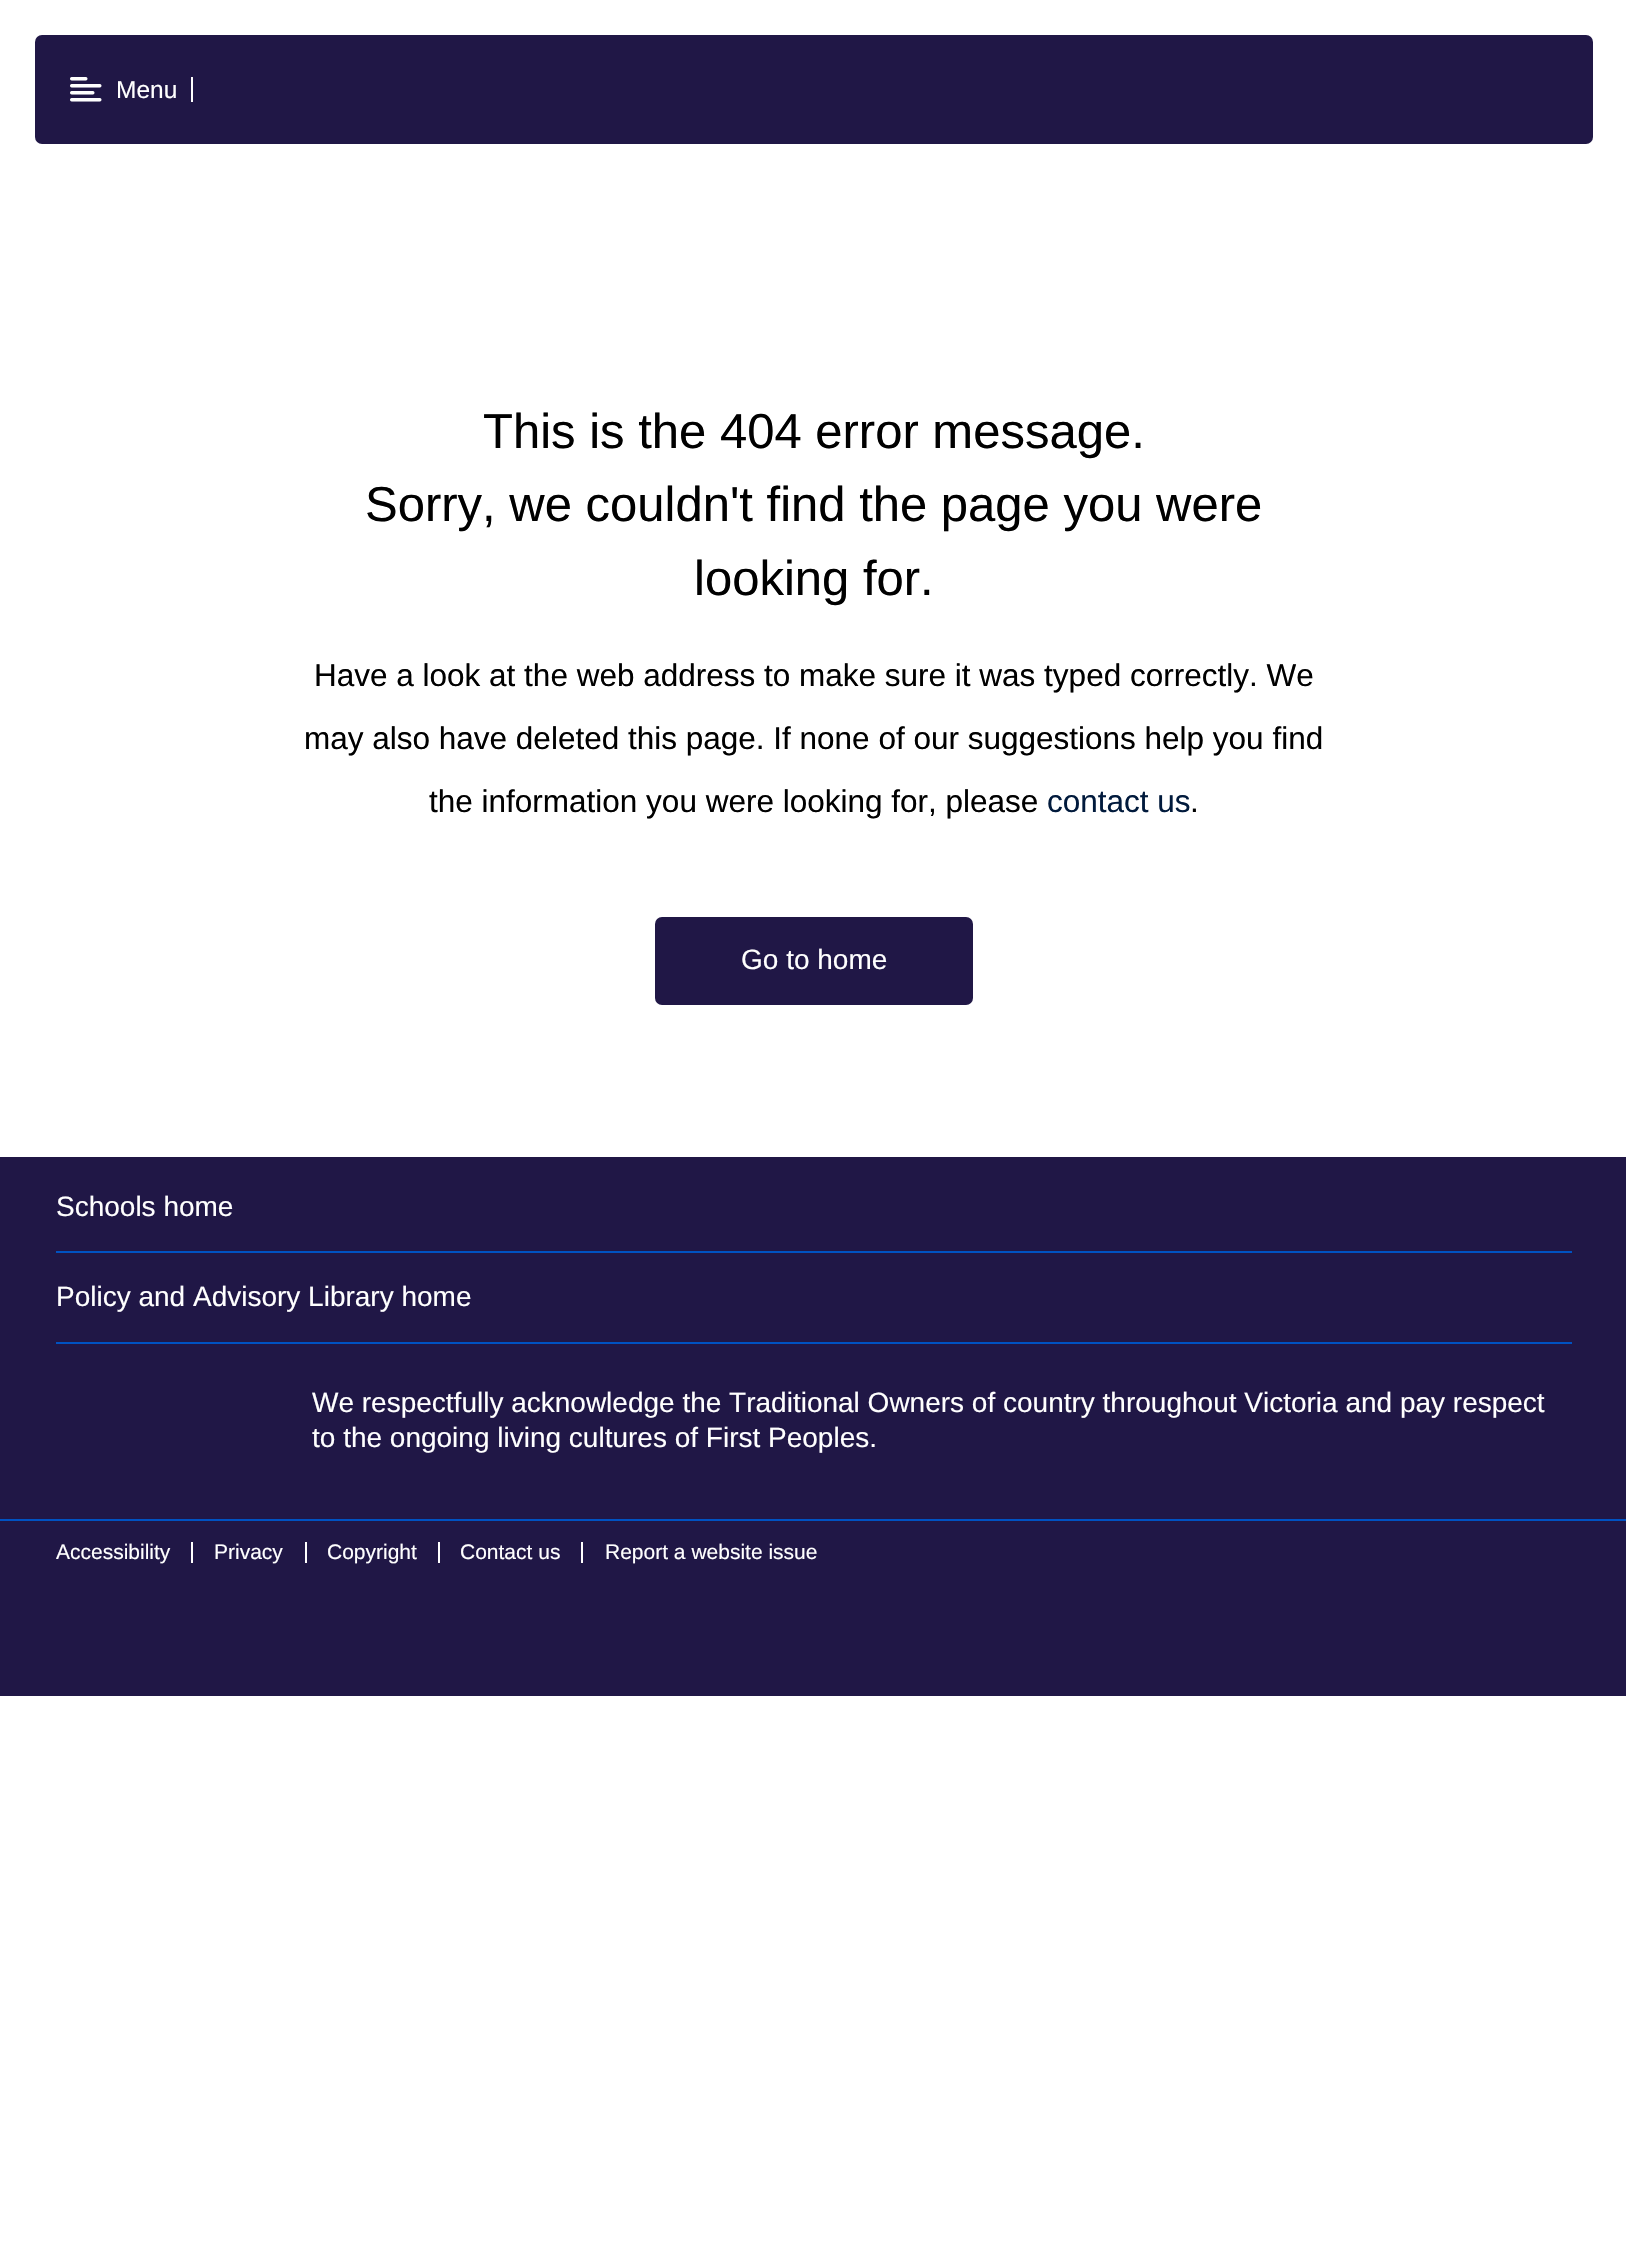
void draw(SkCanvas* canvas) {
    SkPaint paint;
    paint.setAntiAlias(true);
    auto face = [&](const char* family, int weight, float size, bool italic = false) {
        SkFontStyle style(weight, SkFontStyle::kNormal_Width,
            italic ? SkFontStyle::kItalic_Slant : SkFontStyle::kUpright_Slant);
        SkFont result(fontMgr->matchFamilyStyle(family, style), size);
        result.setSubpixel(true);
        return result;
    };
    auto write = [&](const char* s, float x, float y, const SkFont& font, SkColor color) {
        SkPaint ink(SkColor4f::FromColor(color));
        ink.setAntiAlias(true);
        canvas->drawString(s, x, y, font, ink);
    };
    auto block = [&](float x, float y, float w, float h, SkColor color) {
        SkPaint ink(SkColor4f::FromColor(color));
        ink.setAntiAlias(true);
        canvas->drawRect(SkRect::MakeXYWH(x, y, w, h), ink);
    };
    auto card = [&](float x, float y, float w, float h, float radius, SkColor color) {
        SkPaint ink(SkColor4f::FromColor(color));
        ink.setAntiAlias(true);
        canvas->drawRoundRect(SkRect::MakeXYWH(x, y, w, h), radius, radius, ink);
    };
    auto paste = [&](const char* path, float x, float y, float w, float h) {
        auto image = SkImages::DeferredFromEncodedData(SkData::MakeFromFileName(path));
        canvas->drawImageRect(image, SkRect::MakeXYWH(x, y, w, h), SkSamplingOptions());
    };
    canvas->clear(SK_ColorWHITE);
    card(35, 35, 1558, 109, 7, SkColorSetRGB(32, 23, 70));
    paste("pic1.png", 70, 77, 32, 25);
    auto kFont1 = face("Liberation Sans", 400, 24.5f);
    write("Menu", 116, 98, kFont1, SK_ColorWHITE);
    block(191, 77, 2, 25, SK_ColorWHITE);
    auto kFont2 = face("Liberation Sans", 400, 49);
    write("This is the 404 error message.", 483, 448, kFont2, SK_ColorBLACK);
    write("Sorry, we couldn't find the page you were", 365, 521, kFont2, SK_ColorBLACK);
    write("looking for.", 694, 595, kFont2, SK_ColorBLACK);
    auto kFont3 = face("Liberation Sans", 400, 31.5f);
    write("Have a look at the web address to make sure it was typed correctly. We", 314, 686, kFont3, SK_ColorBLACK);
    write("may also have deleted this page. If none of our suggestions help you find", 304, 749, kFont3, SK_ColorBLACK);
    write("the information you were looking for, please", 429, 812, kFont3, SK_ColorBLACK);
    write("contact us", 1047, 812, kFont3, SkColorSetRGB(1, 26, 60));
    write(".", 1190, 812, kFont3, SK_ColorBLACK);
    card(655, 917, 318, 88, 7, SkColorSetRGB(32, 23, 70));
    auto kFont4 = face("Liberation Sans", 400, 28);
    write("Go to home", 741, 969, kFont4, SK_ColorWHITE);
    block(0, 1157, 1626, 539, SkColorSetRGB(32, 23, 70));
    block(0, 1519, 1626, 2, SkColorSetRGB(0, 82, 194));
    block(56, 1251, 1516, 2, SkColorSetRGB(0, 82, 194));
    write("Schools home", 56, 1216, kFont4, SK_ColorWHITE);
    block(56, 1342, 1516, 2, SkColorSetRGB(0, 82, 194));
    write("Policy and Advisory Library home", 56, 1306, kFont4, SK_ColorWHITE);
    write("We respectfully acknowledge the Traditional Owners of country throughout Victoria and pay respect", 312, 1412, kFont4, SK_ColorWHITE);
    write("to the ongoing living cultures of First Peoples.", 312, 1447, kFont4, SK_ColorWHITE);
    auto kFont5 = face("Liberation Sans", 400, 21);
    write("Accessibility", 56, 1559, kFont5, SK_ColorWHITE);
    block(191, 1542, 2, 21, SK_ColorWHITE);
    write("Privacy", 214, 1559, kFont5, SK_ColorWHITE);
    block(305, 1542, 2, 21, SK_ColorWHITE);
    write("Copyright", 327, 1559, kFont5, SK_ColorWHITE);
    block(438, 1542, 2, 21, SK_ColorWHITE);
    write("Contact us", 460, 1559, kFont5, SK_ColorWHITE);
    block(581, 1542, 2, 21, SK_ColorWHITE);
    write("Report a website issue", 605, 1559, kFont5, SK_ColorWHITE);
}
